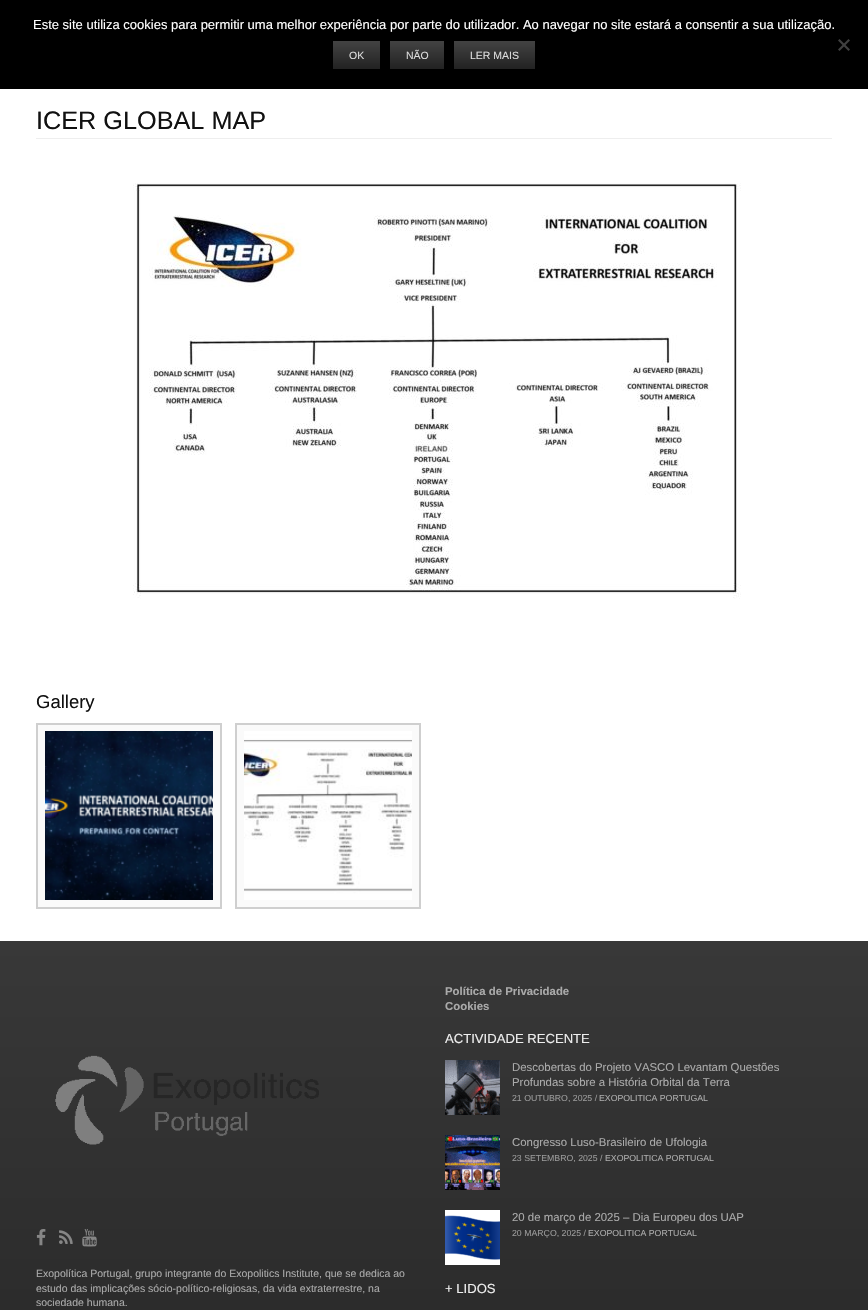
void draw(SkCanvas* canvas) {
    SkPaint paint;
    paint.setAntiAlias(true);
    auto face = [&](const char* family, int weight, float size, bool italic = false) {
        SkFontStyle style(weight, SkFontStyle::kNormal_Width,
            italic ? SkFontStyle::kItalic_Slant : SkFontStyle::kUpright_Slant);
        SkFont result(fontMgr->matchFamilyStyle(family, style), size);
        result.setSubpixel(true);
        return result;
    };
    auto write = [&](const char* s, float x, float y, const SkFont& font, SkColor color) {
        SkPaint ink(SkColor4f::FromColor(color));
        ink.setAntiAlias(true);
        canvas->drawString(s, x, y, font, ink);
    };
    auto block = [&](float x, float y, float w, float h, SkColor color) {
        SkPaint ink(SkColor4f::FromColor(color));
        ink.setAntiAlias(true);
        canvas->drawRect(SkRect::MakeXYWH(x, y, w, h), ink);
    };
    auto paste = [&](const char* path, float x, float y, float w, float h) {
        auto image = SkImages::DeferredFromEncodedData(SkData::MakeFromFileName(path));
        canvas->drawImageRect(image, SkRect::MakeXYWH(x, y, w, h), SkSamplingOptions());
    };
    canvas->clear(SK_ColorWHITE);
    block(0, 0, 868, 89, SK_ColorBLACK);
    auto kFont1 = face("Liberation Sans", 400, 13);
    write("Este site utiliza cookies para permitir uma melhor experiência por parte do utilizador. Ao navegar no site estará a consentir a sua utilização.", 33, 29, kFont1, SK_ColorWHITE);
    paint.setColor(SkColorSetRGB(64, 64, 64));
    canvas->drawPath(SkPathBuilder().moveTo(848.5f, 39).lineTo(850, 40.5f).lineTo(839.5f, 51).lineTo(838, 49.5f).close().detach(), paint);
    canvas->drawPath(SkPathBuilder().moveTo(838, 40.5f).lineTo(839.5f, 39).lineTo(850, 49.5f).lineTo(848.5f, 51).close().detach(), paint);
    {
        const SkColor colors[] = {SkColorSetRGB(67, 67, 67), SkColorSetRGB(34, 34, 34)};
        const float stops[] = {0, 1};
        const SkPoint ends[] = {{357, 41}, {357, 69}};
        paint.setShader(SkGradientShader::MakeLinear(ends, colors, stops, 2, SkTileMode::kClamp));
        paint.setAlpha(255);
    }
    canvas->drawRect(SkRect::MakeXYWH(333, 41, 47, 28), paint);
    auto kFont2 = face("Liberation Sans", 400, 10.5f);
    write("OK", 349, 59, kFont2, SkColorSetRGB(221, 221, 221));
    {
        const SkColor colors[] = {SkColorSetRGB(67, 67, 67), SkColorSetRGB(34, 34, 34)};
        const float stops[] = {0, 1};
        const SkPoint ends[] = {{417, 41}, {417, 69}};
        paint.setShader(SkGradientShader::MakeLinear(ends, colors, stops, 2, SkTileMode::kClamp));
        paint.setAlpha(255);
    }
    canvas->drawRect(SkRect::MakeXYWH(390, 41, 54, 28), paint);
    write("NÃO", 406, 59, kFont2, SkColorSetRGB(221, 221, 221));
    {
        const SkColor colors[] = {SkColorSetRGB(67, 67, 67), SkColorSetRGB(34, 34, 34)};
        const float stops[] = {0, 1};
        const SkPoint ends[] = {{495, 41}, {495, 69}};
        paint.setShader(SkGradientShader::MakeLinear(ends, colors, stops, 2, SkTileMode::kClamp));
        paint.setAlpha(255);
    }
    canvas->drawRect(SkRect::MakeXYWH(454, 41, 81, 28), paint);
    write("LER MAIS", 470, 59, kFont2, SkColorSetRGB(221, 221, 221));
    block(36, 138, 796, 1, SkColorSetRGB(238, 238, 238));
    auto kFont3 = face("Liberation Sans", 400, 25.25f);
    write("ICER GLOBAL MAP", 36, 129, kFont3, SkColorSetRGB(17, 17, 17));
    paste("pic1.png", 133, 183, 608, 416);
    auto kFont4 = face("Liberation Sans", 400, 18.5f);
    write("Gallery", 36, 708, kFont4, SkColorSetRGB(17, 17, 17));
    paint.setShader(nullptr);
    paint.setColor(SkColorSetRGB(250, 250, 250));
    canvas->drawRect(SkRect::MakeXYWH(37, 724, 184, 184), paint);
    paint.setStyle(SkPaint::kStroke_Style);
    paint.setStrokeWidth(2);
    paint.setColor(SkColorSetRGB(207, 207, 207));
    canvas->drawRect(SkRect::MakeXYWH(37, 724, 184, 184), paint);
    paste("pic2.png", 45, 731, 168, 169);
    paint.setStyle(SkPaint::kFill_Style);
    paint.setColor(SkColorSetRGB(250, 250, 250));
    canvas->drawRect(SkRect::MakeXYWH(236, 724, 184, 184), paint);
    paint.setStyle(SkPaint::kStroke_Style);
    paint.setColor(SkColorSetRGB(207, 207, 207));
    canvas->drawRect(SkRect::MakeXYWH(236, 724, 184, 184), paint);
    paste("pic3.png", 244, 731, 168, 169);
    paint.setStyle(SkPaint::kFill_Style);
    {
        const SkColor colors[] = {SkColorSetRGB(56, 56, 56), SkColorSetRGB(34, 34, 34)};
        const float stops[] = {0, 1};
        const SkPoint ends[] = {{434, 941}, {434, 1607}};
        paint.setShader(SkGradientShader::MakeLinear(ends, colors, stops, 2, SkTileMode::kClamp));
        paint.setAlpha(255);
    }
    canvas->drawRect(SkRect::MakeXYWH(0, 941, 868, 369), paint);
    auto kFont5 = face("Liberation Sans", 700, 11.4f);
    write("Política de Privacidade", 445, 995, kFont5, SkColorSetRGB(170, 170, 170));
    write("Cookies", 445, 1010, kFont5, SkColorSetRGB(170, 170, 170));
    auto kFont6 = face("Liberation Sans", 400, 13.1f);
    write("ACTIVIDADE RECENTE", 445, 1043, kFont6, SkColorSetRGB(238, 238, 238));
    paste("pic4.png", 445, 1060, 55, 55);
    auto kFont7 = face("Liberation Sans", 400, 11.4f);
    write("Descobertas do Projeto VASCO Levantam Questões", 512, 1071, kFont7, SkColorSetRGB(170, 170, 170));
    write("Profundas sobre a História Orbital da Terra", 512, 1086, kFont7, SkColorSetRGB(170, 170, 170));
    auto kFont8 = face("Liberation Sans", 400, 8.75f);
    write("21 OUTUBRO, 2025 /", 512, 1101, kFont8, SkColorSetRGB(153, 153, 153));
    write("EXOPOLITICA PORTUGAL", 599, 1101, kFont8, SkColorSetRGB(170, 170, 170));
    paste("pic5.png", 445, 1135, 55, 55);
    write("Congresso Luso-Brasileiro de Ufologia", 512, 1146, kFont7, SkColorSetRGB(170, 170, 170));
    write("23 SETEMBRO, 2025 /", 512, 1161, kFont8, SkColorSetRGB(153, 153, 153));
    write("EXOPOLITICA PORTUGAL", 605, 1161, kFont8, SkColorSetRGB(170, 170, 170));
    paste("pic6.png", 445, 1210, 55, 55);
    write("20 de março de 2025 – Dia Europeu dos UAP", 512, 1221, kFont7, SkColorSetRGB(170, 170, 170));
    write("20 MARÇO, 2025 /", 512, 1236, kFont8, SkColorSetRGB(153, 153, 153));
    write("EXOPOLITICA PORTUGAL", 588, 1236, kFont8, SkColorSetRGB(170, 170, 170));
    paste("pic7.png", 55, 1055, 264, 90);
    paste("pic8.png", 36, 1229, 10, 17);
    paste("pic9.png", 59, 1230, 14, 14);
    paste("pic10.png", 82, 1229, 15, 18);
    write("Exopolítica Portugal, grupo integrante do Exopolitics Institute, que se dedica ao", 36, 1277, kFont2, SkColorSetRGB(170, 170, 170));
    write("estudo das implicações sócio-político-religiosas, da vida extraterrestre, na", 36, 1292, kFont2, SkColorSetRGB(170, 170, 170));
    write("sociedade humana.", 36, 1306, kFont2, SkColorSetRGB(170, 170, 170));
    write("+ LIDOS", 445, 1293, kFont6, SkColorSetRGB(238, 238, 238));
}
